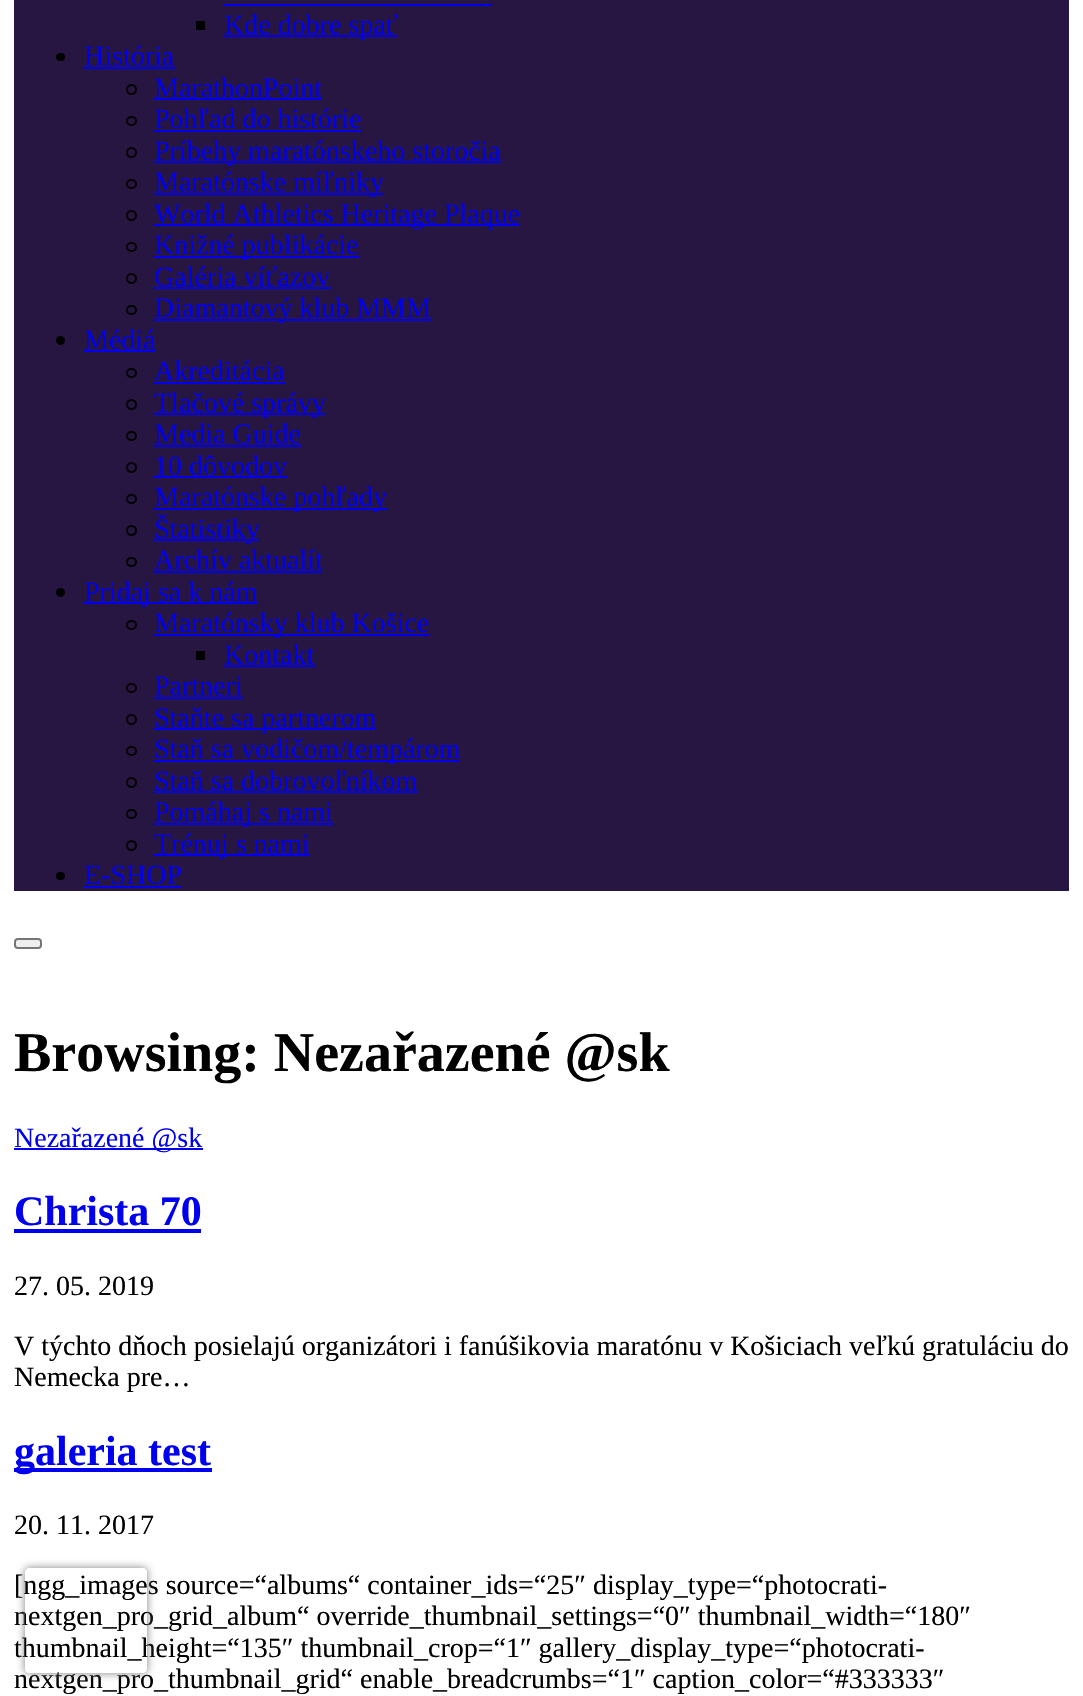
void draw(SkCanvas* canvas) {
    SkPaint paint;
    paint.setAntiAlias(true);
    auto face = [&](const char* family, int weight, float size, bool italic = false) {
        SkFontStyle style(weight, SkFontStyle::kNormal_Width,
            italic ? SkFontStyle::kItalic_Slant : SkFontStyle::kUpright_Slant);
        SkFont result(fontMgr->matchFamilyStyle(family, style), size);
        result.setSubpixel(true);
        return result;
    };
    auto write = [&](const char* s, float x, float y, const SkFont& font, SkColor color) {
        SkPaint ink(SkColor4f::FromColor(color));
        ink.setAntiAlias(true);
        canvas->drawString(s, x, y, font, ink);
    };
    auto block = [&](float x, float y, float w, float h, SkColor color) {
        SkPaint ink(SkColor4f::FromColor(color));
        ink.setAntiAlias(true);
        canvas->drawRect(SkRect::MakeXYWH(x, y, w, h), ink);
    };
    auto card = [&](float x, float y, float w, float h, float radius, SkColor color) {
        SkPaint ink(SkColor4f::FromColor(color));
        ink.setAntiAlias(true);
        canvas->drawRoundRect(SkRect::MakeXYWH(x, y, w, h), radius, radius, ink);
    };
    canvas->clear(SK_ColorWHITE);
    block(14, 0, 1055, 891, SkColorSetRGB(39, 22, 66));
    block(224, 4, 268, 2, SkColorSetRGB(0, 0, 238));
    block(196, 21, 9, 9, SK_ColorBLACK);
    block(224, 35, 173, 2, SkColorSetRGB(0, 0, 238));
    auto kFont1 = face("Liberation Serif", 400, 28);
    write("Kde dobre spať", 224, 34, kFont1, SkColorSetRGB(0, 0, 238));
    card(56, 53, 9, 8, 4, SK_ColorBLACK);
    write("História", 84, 65, kFont1, SkColorSetRGB(0, 0, 238));
    block(84, 67, 91, 2, SkColorSetRGB(0, 0, 238));
    paint.setStyle(SkPaint::kStroke_Style);
    paint.setStrokeWidth(2);
    paint.setColor(SK_ColorBLACK);
    canvas->drawCircle(131.5f, 89.5f, 4.5f, paint);
    write("MarathonPoint", 154, 97, kFont1, SkColorSetRGB(0, 0, 238));
    block(154, 98, 168, 2, SkColorSetRGB(0, 0, 238));
    canvas->drawRoundRect(SkRect::MakeXYWH(127, 117, 9, 8), 4, 4, paint);
    write("Pohľad do histórie", 154, 128, kFont1, SkColorSetRGB(0, 0, 238));
    block(154, 130, 208, 2, SkColorSetRGB(0, 0, 238));
    canvas->drawCircle(131.5f, 152.5f, 4.5f, paint);
    block(154, 161, 347, 2, SkColorSetRGB(0, 0, 238));
    write("Príbehy maratónskeho storočia", 154, 160, kFont1, SkColorSetRGB(0, 0, 238));
    canvas->drawRoundRect(SkRect::MakeXYWH(127, 180, 9, 8), 4, 4, paint);
    block(154, 193, 229, 2, SkColorSetRGB(0, 0, 238));
    write("Maratónske míľniky", 154, 191, kFont1, SkColorSetRGB(0, 0, 238));
    canvas->drawCircle(131.5f, 215.5f, 4.5f, paint);
    block(154, 224, 366, 2, SkColorSetRGB(0, 0, 238));
    write("World Athletics Heritage Plaque", 154, 223, kFont1, SkColorSetRGB(0, 0, 238));
    canvas->drawRoundRect(SkRect::MakeXYWH(127, 243, 9, 8), 4, 4, paint);
    block(154, 256, 205, 2, SkColorSetRGB(0, 0, 238));
    write("Knižné publikácie", 154, 254, kFont1, SkColorSetRGB(0, 0, 238));
    canvas->drawCircle(131.5f, 278.5f, 4.5f, paint);
    write("Galéria víťazov", 154, 286, kFont1, SkColorSetRGB(0, 0, 238));
    block(154, 287, 177, 2, SkColorSetRGB(0, 0, 238));
    canvas->drawRoundRect(SkRect::MakeXYWH(127, 306, 9, 8), 4, 4, paint);
    block(154, 319, 277, 2, SkColorSetRGB(0, 0, 238));
    write("Diamantový klub MMM", 154, 317, kFont1, SkColorSetRGB(0, 0, 238));
    paint.setStyle(SkPaint::kFill_Style);
    canvas->drawCircle(60.5f, 340.5f, 4.5f, paint);
    write("Médiá", 84, 349, kFont1, SkColorSetRGB(0, 0, 238));
    block(84, 350, 72, 2, SkColorSetRGB(0, 0, 238));
    paint.setStyle(SkPaint::kStroke_Style);
    canvas->drawRoundRect(SkRect::MakeXYWH(127, 369, 9, 8), 4, 4, paint);
    write("Akreditácia", 154, 380, kFont1, SkColorSetRGB(0, 0, 238));
    block(154, 382, 131, 2, SkColorSetRGB(0, 0, 238));
    canvas->drawCircle(131.5f, 404.5f, 4.5f, paint);
    block(154, 413, 172, 2, SkColorSetRGB(0, 0, 238));
    write("Tlačové správy", 154, 412, kFont1, SkColorSetRGB(0, 0, 238));
    canvas->drawRoundRect(SkRect::MakeXYWH(127, 432, 9, 8), 4, 4, paint);
    write("Media Guide", 154, 443, kFont1, SkColorSetRGB(0, 0, 238));
    block(154, 445, 147, 2, SkColorSetRGB(0, 0, 238));
    canvas->drawCircle(131.5f, 467.5f, 4.5f, paint);
    write("10 dôvodov", 154, 475, kFont1, SkColorSetRGB(0, 0, 238));
    block(154, 476, 133, 2, SkColorSetRGB(0, 0, 238));
    canvas->drawRoundRect(SkRect::MakeXYWH(127, 495, 9, 8), 4, 4, paint);
    block(154, 508, 233, 2, SkColorSetRGB(0, 0, 238));
    write("Maratónske pohľady", 154, 506, kFont1, SkColorSetRGB(0, 0, 238));
    canvas->drawCircle(131.5f, 530.5f, 4.5f, paint);
    block(154, 539, 105, 2, SkColorSetRGB(0, 0, 238));
    write("Štatistiky", 154, 538, kFont1, SkColorSetRGB(0, 0, 238));
    canvas->drawRoundRect(SkRect::MakeXYWH(127, 558, 9, 8), 4, 4, paint);
    write("Archív aktualít", 154, 569, kFont1, SkColorSetRGB(0, 0, 238));
    block(154, 571, 168, 2, SkColorSetRGB(0, 0, 238));
    paint.setStyle(SkPaint::kFill_Style);
    canvas->drawCircle(60.5f, 592.5f, 4.5f, paint);
    block(84, 602, 173, 2, SkColorSetRGB(0, 0, 238));
    write("Pridaj sa k nám", 84, 601, kFont1, SkColorSetRGB(0, 0, 238));
    paint.setStyle(SkPaint::kStroke_Style);
    canvas->drawRoundRect(SkRect::MakeXYWH(127, 621, 9, 8), 4, 4, paint);
    block(154, 634, 275, 2, SkColorSetRGB(0, 0, 238));
    write("Maratónsky klub Košice", 154, 632, kFont1, SkColorSetRGB(0, 0, 238));
    block(196, 651, 9, 9, SK_ColorBLACK);
    write("Kontakt", 224, 664, kFont1, SkColorSetRGB(0, 0, 238));
    block(224, 665, 91, 2, SkColorSetRGB(0, 0, 238));
    canvas->drawRoundRect(SkRect::MakeXYWH(127, 684, 9, 8), 4, 4, paint);
    write("Partneri", 154, 695, kFont1, SkColorSetRGB(0, 0, 238));
    block(154, 697, 89, 2, SkColorSetRGB(0, 0, 238));
    canvas->drawCircle(131.5f, 719.5f, 4.5f, paint);
    block(154, 728, 222, 2, SkColorSetRGB(0, 0, 238));
    write("Staňte sa partnerom", 154, 727, kFont1, SkColorSetRGB(0, 0, 238));
    canvas->drawRoundRect(SkRect::MakeXYWH(127, 747, 9, 8), 4, 4, paint);
    block(154, 760, 306, 2, SkColorSetRGB(0, 0, 238));
    write("Staň sa vodičom/tempárom", 154, 758, kFont1, SkColorSetRGB(0, 0, 238));
    canvas->drawCircle(131.5f, 782.5f, 4.5f, paint);
    write("Staň sa dobrovoľníkom", 154, 790, kFont1, SkColorSetRGB(0, 0, 238));
    block(154, 791, 264, 2, SkColorSetRGB(0, 0, 238));
    canvas->drawRoundRect(SkRect::MakeXYWH(127, 810, 9, 8), 4, 4, paint);
    block(154, 823, 179, 2, SkColorSetRGB(0, 0, 238));
    write("Pomáhaj s nami", 154, 821, kFont1, SkColorSetRGB(0, 0, 238));
    canvas->drawCircle(131.5f, 845.5f, 4.5f, paint);
    block(154, 854, 156, 2, SkColorSetRGB(0, 0, 238));
    write("Trénuj s nami", 154, 853, kFont1, SkColorSetRGB(0, 0, 238));
    card(56, 872, 9, 8, 4, SK_ColorBLACK);
    write("E-SHOP", 84, 884, kFont1, SkColorSetRGB(0, 0, 238));
    block(84, 886, 98, 2, SkColorSetRGB(0, 0, 238));
    paint.setStyle(SkPaint::kFill_Style);
    paint.setColor(SkColorSetRGB(239, 239, 239));
    canvas->drawRoundRect(SkRect::MakeXYWH(15, 939, 26, 9), 3, 3, paint);
    paint.setStyle(SkPaint::kStroke_Style);
    paint.setColor(SkColorSetRGB(118, 118, 118));
    canvas->drawRoundRect(SkRect::MakeXYWH(15, 939, 26, 9), 3, 3, paint);
    auto kFont2 = face("Liberation Serif", 700, 56);
    write("Browsing: Nezařazené @sk", 14, 1071, kFont2, SK_ColorBLACK);
    block(14, 1148, 189, 2, SkColorSetRGB(0, 0, 238));
    write("Nezařazené @sk", 14, 1147, kFont1, SkColorSetRGB(0, 0, 238));
    auto kFont3 = face("Liberation Serif", 700, 42);
    write("Christa 70", 14, 1225, kFont3, SkColorSetRGB(0, 0, 238));
    block(14, 1229, 187, 4, SkColorSetRGB(0, 0, 238));
    write("27. 05. 2019", 14, 1295, kFont1, SK_ColorBLACK);
    write("V týchto dňoch posielajú organizátori i fanúšikovia maratónu v Košiciach veľkú gratuláciu do", 14, 1355, kFont1, SK_ColorBLACK);
    write("Nemecka pre…", 14, 1386, kFont1, SK_ColorBLACK);
    block(14, 1468, 198, 4, SkColorSetRGB(0, 0, 238));
    write("galeria test", 14, 1465, kFont3, SkColorSetRGB(0, 0, 238));
    write("20. 11. 2017", 14, 1534, kFont1, SK_ColorBLACK);
    write("[ngg_images source=“albums“ container_ids=“25″ display_type=“photocrati-", 14, 1594, kFont1, SK_ColorBLACK);
    write("nextgen_pro_grid_album“ override_thumbnail_settings=“0″ thumbnail_width=“180″", 14, 1625, kFont1, SK_ColorBLACK);
    write("thumbnail_height=“135″ thumbnail_crop=“1″ gallery_display_type=“photocrati-", 14, 1657, kFont1, SK_ColorBLACK);
    write("nextgen_pro_thumbnail_grid“ enable_breadcrumbs=“1″ caption_color=“#333333″", 14, 1688, kFont1, SK_ColorBLACK);
    canvas->save();
    canvas->clipPath(SkPathBuilder(SkPathFillType::kEvenOdd).moveTo(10, 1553).lineTo(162, 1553).lineTo(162, 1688).lineTo(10, 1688).close().moveTo(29, 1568).lineTo(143, 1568).cubicTo(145, 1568, 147, 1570, 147, 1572).lineTo(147, 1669).cubicTo(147, 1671, 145, 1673, 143, 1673).lineTo(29, 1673).cubicTo(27, 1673, 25, 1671, 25, 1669).lineTo(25, 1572).cubicTo(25, 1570, 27, 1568, 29, 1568).close().detach(), true);
    paint.setStyle(SkPaint::kFill_Style);
    paint.setColor(SkColorSetRGB(128, 128, 128));
    paint.setMaskFilter(SkMaskFilter::MakeBlur(kNormal_SkBlurStyle, 4.5f));
    canvas->drawRoundRect(SkRect::MakeXYWH(25, 1568, 122, 105), 4, 4, paint);
    paint.setMaskFilter(nullptr);
    canvas->restore();
}
